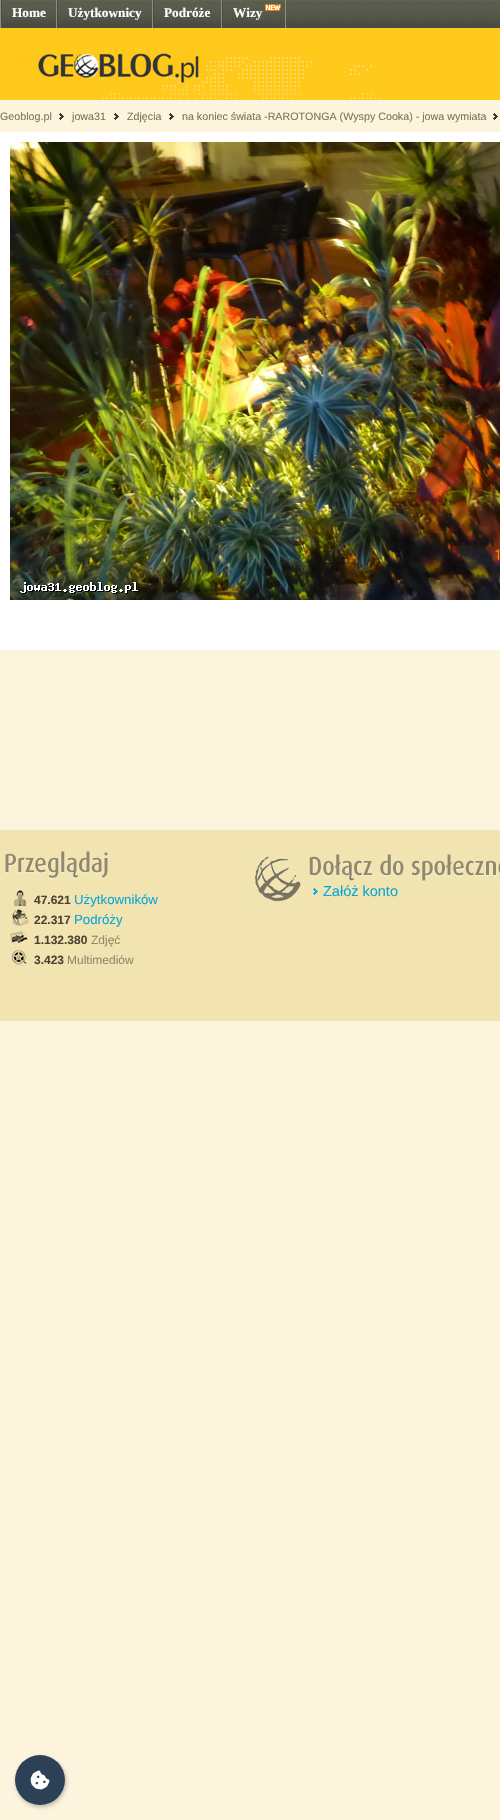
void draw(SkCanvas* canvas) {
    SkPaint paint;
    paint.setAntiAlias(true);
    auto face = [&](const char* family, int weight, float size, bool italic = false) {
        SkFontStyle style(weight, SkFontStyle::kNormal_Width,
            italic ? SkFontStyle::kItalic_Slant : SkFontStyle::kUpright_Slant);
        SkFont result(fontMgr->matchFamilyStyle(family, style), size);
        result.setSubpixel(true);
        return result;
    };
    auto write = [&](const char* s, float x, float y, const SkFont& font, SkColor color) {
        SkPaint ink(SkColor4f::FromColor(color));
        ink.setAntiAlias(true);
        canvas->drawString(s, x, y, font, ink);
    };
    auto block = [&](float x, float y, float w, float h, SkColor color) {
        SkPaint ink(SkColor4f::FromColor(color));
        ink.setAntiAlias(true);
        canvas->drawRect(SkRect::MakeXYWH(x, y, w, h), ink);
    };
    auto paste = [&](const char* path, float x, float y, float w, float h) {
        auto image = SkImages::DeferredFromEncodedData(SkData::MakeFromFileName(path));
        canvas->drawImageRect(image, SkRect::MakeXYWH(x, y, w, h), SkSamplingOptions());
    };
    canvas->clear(SkColorSetRGB(252, 244, 221));
    paste("pic1.png", 2, 0, 498, 28);
    block(0, 0, 1, 28, SkColorSetRGB(140, 141, 131));
    block(56, 0, 1, 28, SkColorSetRGB(140, 141, 131));
    block(1, 0, 1, 28, SkColorSetRGB(73, 74, 65));
    auto kFont1 = face("Liberation Serif", 700, 13.25f);
    write("Home", 12, 17, kFont1, SK_ColorWHITE);
    block(152, 0, 1, 28, SkColorSetRGB(140, 141, 131));
    block(57, 0, 1, 28, SkColorSetRGB(73, 74, 65));
    write("Użytkownicy", 68, 17, kFont1, SK_ColorWHITE);
    block(221, 0, 1, 28, SkColorSetRGB(140, 141, 131));
    block(153, 0, 1, 28, SkColorSetRGB(73, 74, 65));
    write("Podróże", 164, 17, kFont1, SK_ColorWHITE);
    block(285, 0, 1, 28, SkColorSetRGB(140, 141, 131));
    block(222, 0, 1, 28, SkColorSetRGB(73, 74, 65));
    write("Wizy", 233, 17, kFont1, SK_ColorWHITE);
    paste("pic2.png", 265, 4, 16, 7);
    block(0, 28, 500, 72, SkColorSetRGB(255, 202, 28));
    paste("pic3.png", 0, 52, 380, 48);
    auto kFont2 = face("Liberation Sans", 400, 10.7f);
    write("Geoblog.pl", 0, 120, kFont2, SkColorSetRGB(118, 118, 92));
    paste("pic4.png", 59, 113, 5, 7);
    write("jowa31", 72, 120, kFont2, SkColorSetRGB(118, 118, 92));
    paste("pic4.png", 114, 113, 5, 7);
    write("Zdjęcia", 127, 120, kFont2, SkColorSetRGB(118, 118, 92));
    paste("pic4.png", 169, 113, 5, 7);
    write("na koniec świata -RAROTONGA (Wyspy Cooka) - jowa wymiata", 182, 120, kFont2, SkColorSetRGB(118, 118, 92));
    paste("pic4.png", 493, 113, 5, 7);
    block(0, 132, 500, 518, SK_ColorWHITE);
    paste("pic5.png", 10, 142, 490, 458);
    block(0, 830, 500, 191, SkColorSetRGB(242, 228, 177));
    paste("pic6.png", 252, 852, 52, 52);
    paste("pic7.png", 305, 852, 195, 31);
    paste("pic8.png", 310, 886, 9, 12);
    auto kFont3 = face("Liberation Sans", 400, 14.5f);
    write("Załóż konto", 323, 896, kFont3, SkColorSetRGB(11, 167, 216));
    paste("pic9.png", 4, 850, 104, 32);
    paste("pic10.png", 11, 890, 16, 16);
    auto kFont4 = face("Liberation Sans", 700, 12);
    write("47.621", 34, 904, kFont4, SkColorSetRGB(75, 66, 51));
    auto kFont5 = face("Liberation Sans", 400, 13.25f);
    write("Użytkowników", 74, 904, kFont5, SkColorSetRGB(11, 167, 216));
    paste("pic11.png", 11, 909, 18, 17);
    write("22.317", 34, 924, kFont4, SkColorSetRGB(75, 66, 51));
    write("Podróży", 74, 924, kFont5, SkColorSetRGB(11, 167, 216));
    paste("pic12.png", 10, 930, 19, 16);
    write("1.132.380", 34, 944, kFont4, SkColorSetRGB(75, 66, 51));
    auto kFont6 = face("Liberation Sans", 400, 12);
    write("Zdjęć", 91, 944, kFont6, SkColorSetRGB(146, 136, 106));
    paste("pic13.png", 11, 949, 16, 17);
    write("3.423", 34, 964, kFont4, SkColorSetRGB(75, 66, 51));
    write("Multimediów", 67, 964, kFont6, SkColorSetRGB(146, 136, 106));
    paint.setColor(SkColorSetARGB(64, 0, 0, 0));
    paint.setMaskFilter(SkMaskFilter::MakeBlur(kNormal_SkBlurStyle, 2));
    canvas->drawRoundRect(SkRect::MakeXYWH(16, 1757, 50, 50), 25, 25, paint);
    paint.setMaskFilter(nullptr);
    paint.setColor(SkColorSetRGB(45, 65, 86));
    canvas->drawCircle(40, 1780, 25, paint);
    paste("pic14.png", 30, 1770, 20, 20);
}
